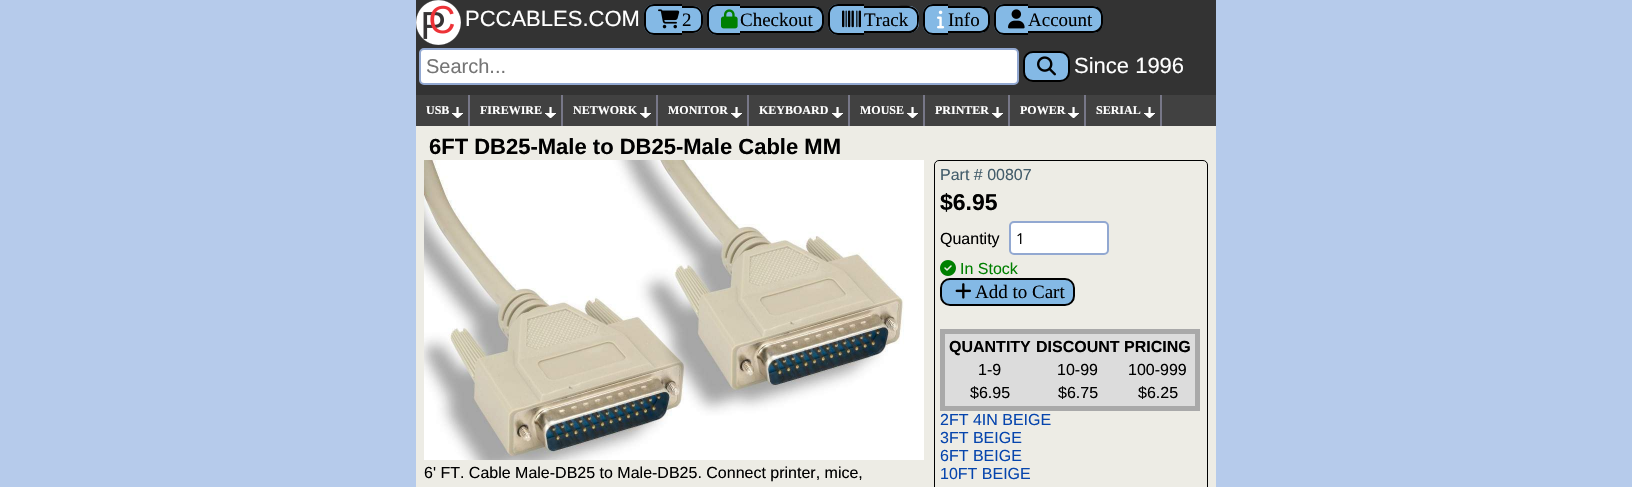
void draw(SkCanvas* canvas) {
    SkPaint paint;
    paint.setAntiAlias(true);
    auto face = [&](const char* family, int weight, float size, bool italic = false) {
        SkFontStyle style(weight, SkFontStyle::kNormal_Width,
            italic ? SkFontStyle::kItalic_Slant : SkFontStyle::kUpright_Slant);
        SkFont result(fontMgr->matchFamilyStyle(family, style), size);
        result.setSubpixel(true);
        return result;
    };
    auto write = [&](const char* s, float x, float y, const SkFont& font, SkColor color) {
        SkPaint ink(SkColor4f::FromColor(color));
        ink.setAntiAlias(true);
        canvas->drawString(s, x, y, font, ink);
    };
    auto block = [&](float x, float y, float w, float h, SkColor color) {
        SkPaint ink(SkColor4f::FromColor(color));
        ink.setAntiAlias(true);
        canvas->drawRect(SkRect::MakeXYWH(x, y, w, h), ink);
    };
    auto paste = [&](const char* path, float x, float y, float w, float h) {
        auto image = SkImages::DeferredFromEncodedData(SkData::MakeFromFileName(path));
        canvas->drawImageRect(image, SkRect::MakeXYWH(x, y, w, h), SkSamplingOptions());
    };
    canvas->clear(SkColorSetRGB(182, 203, 235));
    block(416, 0, 800, 95, SkColorSetRGB(51, 51, 51));
    paste("pic1.png", 416, 0, 45, 45);
    auto kFont1 = face("Liberation Sans", 400, 22);
    write("PCCABLES.COM", 465, 26, kFont1, SK_ColorWHITE);
    paint.setColor(SkColorSetRGB(132, 185, 229));
    canvas->drawPath(SkPathBuilder().moveTo(654, 4).lineTo(682, 4).lineTo(682, 35).lineTo(654, 35).cubicTo(648.5f, 35, 644, 30.5f, 644, 25).lineTo(644, 14).cubicTo(644, 8.5f, 648.5f, 4, 654, 4).close().detach(), paint);
    paint.setColor(SK_ColorBLACK);
    canvas->drawPath(SkPathBuilder(SkPathFillType::kEvenOdd).moveTo(654, 4).lineTo(682, 4).lineTo(682, 35).lineTo(654, 35).cubicTo(648.5f, 35, 644, 30.5f, 644, 25).lineTo(644, 14).cubicTo(644, 8.5f, 648.5f, 4, 654, 4).close().moveTo(654, 6).lineTo(682, 6).lineTo(682, 33).lineTo(654, 33).cubicTo(649.5f, 33, 646, 29.5f, 646, 25).lineTo(646, 14).cubicTo(646, 9.5f, 649.5f, 6, 654, 6).close().detach(), paint);
    paint.setColor(SkColorSetRGB(132, 185, 229));
    canvas->drawPath(SkPathBuilder().moveTo(682, 6).lineTo(693, 6).cubicTo(698.5f, 6, 703, 10.5f, 703, 16).lineTo(703, 23).cubicTo(703, 28.5f, 698.5f, 33, 693, 33).lineTo(682, 33).close().detach(), paint);
    paint.setColor(SK_ColorBLACK);
    canvas->drawPath(SkPathBuilder(SkPathFillType::kEvenOdd).moveTo(682, 6).lineTo(693, 6).cubicTo(698.5f, 6, 703, 10.5f, 703, 16).lineTo(703, 23).cubicTo(703, 28.5f, 698.5f, 33, 693, 33).lineTo(682, 33).close().moveTo(682, 8).lineTo(693, 8).cubicTo(697.5f, 8, 701, 11.5f, 701, 16).lineTo(701, 23).cubicTo(701, 27.5f, 697.5f, 31, 693, 31).lineTo(682, 31).close().detach(), paint);
    paste("pic2.png", 658, 9, 22, 20);
    auto kFont2 = face("Liberation Serif", 400, 19);
    write("2", 682, 26, kFont2, SK_ColorBLACK);
    paint.setColor(SkColorSetRGB(132, 185, 229));
    canvas->drawPath(SkPathBuilder().moveTo(717, 4).lineTo(740, 4).lineTo(740, 35).lineTo(717, 35).cubicTo(711.5f, 35, 707, 30.5f, 707, 25).lineTo(707, 14).cubicTo(707, 8.5f, 711.5f, 4, 717, 4).close().detach(), paint);
    paint.setColor(SK_ColorBLACK);
    canvas->drawPath(SkPathBuilder(SkPathFillType::kEvenOdd).moveTo(717, 4).lineTo(740, 4).lineTo(740, 35).lineTo(717, 35).cubicTo(711.5f, 35, 707, 30.5f, 707, 25).lineTo(707, 14).cubicTo(707, 8.5f, 711.5f, 4, 717, 4).close().moveTo(717, 6).lineTo(740, 6).lineTo(740, 33).lineTo(717, 33).cubicTo(712.5f, 33, 709, 29.5f, 709, 25).lineTo(709, 14).cubicTo(709, 9.5f, 712.5f, 6, 717, 6).close().detach(), paint);
    paint.setColor(SkColorSetRGB(132, 185, 229));
    canvas->drawPath(SkPathBuilder().moveTo(740, 6).lineTo(814, 6).cubicTo(819.5f, 6, 824, 10.5f, 824, 16).lineTo(824, 23).cubicTo(824, 28.5f, 819.5f, 33, 814, 33).lineTo(740, 33).close().detach(), paint);
    paint.setColor(SK_ColorBLACK);
    canvas->drawPath(SkPathBuilder(SkPathFillType::kEvenOdd).moveTo(740, 6).lineTo(814, 6).cubicTo(820, 6, 824, 10, 824, 16).lineTo(824, 23).cubicTo(824, 29, 820, 33, 814, 33).lineTo(740, 33).close().moveTo(740, 8).lineTo(814, 8).cubicTo(818, 8, 822, 12, 822, 16).lineTo(822, 23).cubicTo(822, 27, 818, 31, 814, 31).lineTo(740, 31).close().detach(), paint);
    paste("pic3.png", 721, 9, 17, 20);
    write("Checkout", 740, 26, kFont2, SK_ColorBLACK);
    paint.setColor(SkColorSetRGB(132, 185, 229));
    canvas->drawPath(SkPathBuilder().moveTo(838, 4).lineTo(864, 4).lineTo(864, 35).lineTo(838, 35).cubicTo(832.5f, 35, 828, 30.5f, 828, 25).lineTo(828, 14).cubicTo(828, 8.5f, 832.5f, 4, 838, 4).close().detach(), paint);
    paint.setColor(SK_ColorBLACK);
    canvas->drawPath(SkPathBuilder(SkPathFillType::kEvenOdd).moveTo(838, 4).lineTo(864, 4).lineTo(864, 35).lineTo(838, 35).cubicTo(832.5f, 35, 828, 30.5f, 828, 25).lineTo(828, 14).cubicTo(828, 8.5f, 832.5f, 4, 838, 4).close().moveTo(838, 6).lineTo(864, 6).lineTo(864, 33).lineTo(838, 33).cubicTo(833.5f, 33, 830, 29.5f, 830, 25).lineTo(830, 14).cubicTo(830, 9.5f, 833.5f, 6, 838, 6).close().detach(), paint);
    paint.setColor(SkColorSetRGB(132, 185, 229));
    canvas->drawPath(SkPathBuilder().moveTo(864, 6).lineTo(909, 6).cubicTo(914.5f, 6, 919, 10.5f, 919, 16).lineTo(919, 23).cubicTo(919, 28.5f, 914.5f, 33, 909, 33).lineTo(864, 33).close().detach(), paint);
    paint.setColor(SK_ColorBLACK);
    canvas->drawPath(SkPathBuilder(SkPathFillType::kEvenOdd).moveTo(864, 6).lineTo(894, 6).cubicTo(903, 6, 918, 3, 919, 16).cubicTo(919, 23, 919, 31, 911, 33).lineTo(864, 33).close().moveTo(864, 8).lineTo(909, 8).cubicTo(913, 8, 917, 12, 917, 16).lineTo(917, 23).cubicTo(917, 27, 913, 31, 909, 31).lineTo(864, 31).close().detach(), paint);
    paste("pic4.png", 842, 10, 19, 18);
    write("Track", 864, 26, kFont2, SK_ColorBLACK);
    paint.setColor(SkColorSetRGB(132, 185, 229));
    canvas->drawPath(SkPathBuilder().moveTo(933, 4).lineTo(948, 4).lineTo(948, 35).lineTo(933, 35).cubicTo(927.5f, 35, 923, 30.5f, 923, 25).lineTo(923, 14).cubicTo(923, 8.5f, 927.5f, 4, 933, 4).close().detach(), paint);
    paint.setColor(SK_ColorBLACK);
    canvas->drawPath(SkPathBuilder(SkPathFillType::kEvenOdd).moveTo(933, 4).lineTo(948, 4).lineTo(948, 35).lineTo(933, 35).cubicTo(927.5f, 35, 923, 30.5f, 923, 25).lineTo(923, 14).cubicTo(923, 8.5f, 927.5f, 4, 933, 4).close().moveTo(933, 6).lineTo(948, 6).lineTo(948, 33).lineTo(933, 33).cubicTo(928.5f, 33, 925, 29.5f, 925, 25).lineTo(925, 14).cubicTo(925, 9.5f, 928.5f, 6, 933, 6).close().detach(), paint);
    paint.setColor(SkColorSetRGB(132, 185, 229));
    canvas->drawPath(SkPathBuilder().moveTo(948, 6).lineTo(980, 6).cubicTo(985.5f, 6, 990, 10.5f, 990, 16).lineTo(990, 23).cubicTo(990, 28.5f, 985.5f, 33, 980, 33).lineTo(948, 33).close().detach(), paint);
    paint.setColor(SK_ColorBLACK);
    canvas->drawPath(SkPathBuilder(SkPathFillType::kEvenOdd).moveTo(948, 6).lineTo(980, 6).cubicTo(986, 6, 990, 10, 990, 16).lineTo(990, 23).cubicTo(990, 29, 986, 33, 980, 33).lineTo(948, 33).close().moveTo(948, 8).lineTo(980, 8).cubicTo(984, 8, 988, 12, 988, 16).lineTo(988, 23).cubicTo(988, 27, 984, 31, 980, 31).lineTo(948, 31).close().detach(), paint);
    paste("pic5.png", 937, 10, 8, 19);
    write("Info", 948, 26, kFont2, SK_ColorBLACK);
    paint.setColor(SkColorSetRGB(132, 185, 229));
    canvas->drawPath(SkPathBuilder().moveTo(1004, 4).lineTo(1028, 4).lineTo(1028, 35).lineTo(1004, 35).cubicTo(998.5f, 35, 994, 30.5f, 994, 25).lineTo(994, 14).cubicTo(994, 8.5f, 998.5f, 4, 1004, 4).close().detach(), paint);
    paint.setColor(SK_ColorBLACK);
    canvas->drawPath(SkPathBuilder(SkPathFillType::kEvenOdd).moveTo(1004, 4).lineTo(1028, 4).lineTo(1028, 35).lineTo(1004, 35).cubicTo(998.5f, 35, 994, 30.5f, 994, 25).lineTo(994, 14).cubicTo(994, 8.5f, 998.5f, 4, 1004, 4).close().moveTo(1004, 6).lineTo(1028, 6).lineTo(1028, 33).lineTo(1004, 33).cubicTo(999.5f, 33, 996, 29.5f, 996, 25).lineTo(996, 14).cubicTo(996, 9.5f, 999.5f, 6, 1004, 6).close().detach(), paint);
    paint.setColor(SkColorSetRGB(132, 185, 229));
    canvas->drawPath(SkPathBuilder().moveTo(1028, 6).lineTo(1093, 6).cubicTo(1098.5f, 6, 1103, 10.5f, 1103, 16).lineTo(1103, 23).cubicTo(1103, 28.5f, 1098.5f, 33, 1093, 33).lineTo(1028, 33).close().detach(), paint);
    paint.setColor(SK_ColorBLACK);
    canvas->drawPath(SkPathBuilder(SkPathFillType::kEvenOdd).moveTo(1028, 6).lineTo(1093, 6).cubicTo(1099, 6, 1103, 10, 1103, 16).lineTo(1103, 23).cubicTo(1103, 29, 1099, 33, 1093, 33).lineTo(1028, 33).close().moveTo(1028, 8).lineTo(1093, 8).cubicTo(1097, 8, 1101, 12, 1101, 16).lineTo(1101, 23).cubicTo(1101, 27, 1097, 31, 1093, 31).lineTo(1028, 31).close().detach(), paint);
    paste("pic6.png", 1008, 9, 17, 20);
    write("Account", 1028, 26, kFont2, SK_ColorBLACK);
    paint.setColor(SK_ColorWHITE);
    canvas->drawRoundRect(SkRect::MakeXYWH(420, 49, 598, 35), 4, 4, paint);
    paint.setStyle(SkPaint::kStroke_Style);
    paint.setStrokeWidth(2);
    paint.setColor(SkColorSetRGB(146, 168, 209));
    canvas->drawRoundRect(SkRect::MakeXYWH(420, 49, 598, 35), 4, 4, paint);
    auto kFont3 = face("Liberation Sans", 400, 20);
    write("Search...", 426, 73, kFont3, SkColorSetRGB(117, 117, 117));
    paint.setStyle(SkPaint::kFill_Style);
    paint.setColor(SkColorSetRGB(132, 185, 229));
    canvas->drawRoundRect(SkRect::MakeXYWH(1024, 52, 45, 29), 9, 9, paint);
    paint.setStyle(SkPaint::kStroke_Style);
    paint.setColor(SK_ColorBLACK);
    canvas->drawRoundRect(SkRect::MakeXYWH(1024, 52, 45, 29), 9, 9, paint);
    paste("pic7.png", 1037, 56, 19, 20);
    write("Since 1996", 1074, 73, kFont1, SK_ColorWHITE);
    block(416, 95, 800, 31, SkColorSetRGB(65, 65, 65));
    block(468, 95, 2, 31, SkColorSetRGB(119, 119, 136));
    auto kFont4 = face("Liberation Serif", 700, 12);
    write("USB", 426, 114, kFont4, SK_ColorWHITE);
    paste("pic8.png", 452, 107, 11, 11);
    block(561, 95, 2, 31, SkColorSetRGB(119, 119, 136));
    write("FIREWIRE", 480, 114, kFont4, SK_ColorWHITE);
    paste("pic8.png", 545, 107, 11, 11);
    block(656, 95, 2, 31, SkColorSetRGB(119, 119, 136));
    write("NETWORK", 573, 114, kFont4, SK_ColorWHITE);
    paste("pic8.png", 640, 107, 11, 11);
    block(747, 95, 2, 31, SkColorSetRGB(119, 119, 136));
    write("MONITOR", 668, 114, kFont4, SK_ColorWHITE);
    paste("pic8.png", 731, 107, 11, 11);
    block(848, 95, 2, 31, SkColorSetRGB(119, 119, 136));
    write("KEYBOARD", 759, 114, kFont4, SK_ColorWHITE);
    paste("pic8.png", 832, 107, 11, 11);
    block(923, 95, 2, 31, SkColorSetRGB(119, 119, 136));
    write("MOUSE", 860, 114, kFont4, SK_ColorWHITE);
    paste("pic8.png", 907, 107, 11, 11);
    block(1008, 95, 2, 31, SkColorSetRGB(119, 119, 136));
    write("PRINTER", 935, 114, kFont4, SK_ColorWHITE);
    paste("pic8.png", 992, 107, 11, 11);
    block(1084, 95, 2, 31, SkColorSetRGB(119, 119, 136));
    write("POWER", 1020, 114, kFont4, SK_ColorWHITE);
    paste("pic8.png", 1068, 107, 11, 11);
    block(1160, 95, 2, 31, SkColorSetRGB(119, 119, 136));
    write("SERIAL", 1096, 114, kFont4, SK_ColorWHITE);
    paste("pic8.png", 1144, 107, 11, 11);
    block(416, 126, 800, 361, SkColorSetRGB(237, 236, 229));
    auto kFont5 = face("Liberation Sans", 700, 22);
    write("6FT DB25-Male to DB25-Male Cable MM", 429, 154, kFont5, SK_ColorBLACK);
    paste("pic9.png", 424, 160, 500, 300);
    auto kFont6 = face("Liberation Sans", 400, 16);
    write("6' FT. Cable Male-DB25 to Male-DB25. Connect printer, mice,", 424, 478, kFont6, SK_ColorBLACK);
    paint.setStrokeWidth(1);
    canvas->drawRoundRect(SkRect::MakeXYWH(934.5f, 160.5f, 273, 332), 4.5f, 4.5f, paint);
    write("Part # 00807", 940, 180, kFont6, SkColorSetRGB(67, 93, 107));
    auto kFont7 = face("Liberation Sans", 700, 23);
    write("$6.95", 940, 210, kFont7, SK_ColorBLACK);
    write("Quantity", 940, 244, kFont6, SK_ColorBLACK);
    paint.setStyle(SkPaint::kFill_Style);
    paint.setColor(SK_ColorWHITE);
    canvas->drawRoundRect(SkRect::MakeXYWH(1010, 222, 98, 32), 4, 4, paint);
    paint.setStyle(SkPaint::kStroke_Style);
    paint.setStrokeWidth(2);
    paint.setColor(SkColorSetRGB(146, 168, 209));
    canvas->drawRoundRect(SkRect::MakeXYWH(1010, 222, 98, 32), 4, 4, paint);
    auto kFont8 = face("Open Sans", 400, 15);
    write("1", 1016, 244, kFont8, SK_ColorBLACK);
    paste("pic10.png", 940, 260, 16, 16);
    write("In Stock", 960, 274, kFont6, SkColorSetRGB(0, 128, 0));
    paint.setStyle(SkPaint::kFill_Style);
    paint.setColor(SkColorSetRGB(132, 185, 229));
    canvas->drawRoundRect(SkRect::MakeXYWH(941, 279, 133, 26), 9, 9, paint);
    paint.setStyle(SkPaint::kStroke_Style);
    paint.setColor(SK_ColorBLACK);
    canvas->drawRoundRect(SkRect::MakeXYWH(941, 279, 133, 26), 9, 9, paint);
    paste("pic11.png", 955, 283, 16, 16);
    write("Add to Cart", 975, 298, kFont2, SK_ColorBLACK);
    paint.setStyle(SkPaint::kFill_Style);
    paint.setColor(SkColorSetRGB(220, 220, 220));
    canvas->drawRect(SkRect::MakeXYWH(942.5f, 331.5f, 255, 77), paint);
    paint.setStyle(SkPaint::kStroke_Style);
    paint.setStrokeWidth(5);
    paint.setColor(SkColorSetRGB(169, 169, 169));
    canvas->drawRect(SkRect::MakeXYWH(942.5f, 331.5f, 255, 77), paint);
    auto kFont9 = face("Liberation Sans", 700, 16);
    write("QUANTITY", 949, 352, kFont9, SK_ColorBLACK);
    write("DISCOUNT", 1036, 352, kFont9, SK_ColorBLACK);
    write("PRICING", 1124, 352, kFont9, SK_ColorBLACK);
    write("1-9", 978, 375, kFont6, SK_ColorBLACK);
    write("10-99", 1057, 375, kFont6, SK_ColorBLACK);
    write("100-999", 1128, 375, kFont6, SK_ColorBLACK);
    write("$6.95", 970, 398, kFont6, SK_ColorBLACK);
    write("$6.75", 1058, 398, kFont6, SK_ColorBLACK);
    write("$6.25", 1138, 398, kFont6, SK_ColorBLACK);
    write("2FT 4IN BEIGE", 940, 425, kFont6, SkColorSetRGB(6, 69, 173));
    write("3FT BEIGE", 940, 443, kFont6, SkColorSetRGB(6, 69, 173));
    write("6FT BEIGE", 940, 461, kFont6, SkColorSetRGB(6, 69, 173));
    write("10FT BEIGE", 940, 479, kFont6, SkColorSetRGB(6, 69, 173));
}
